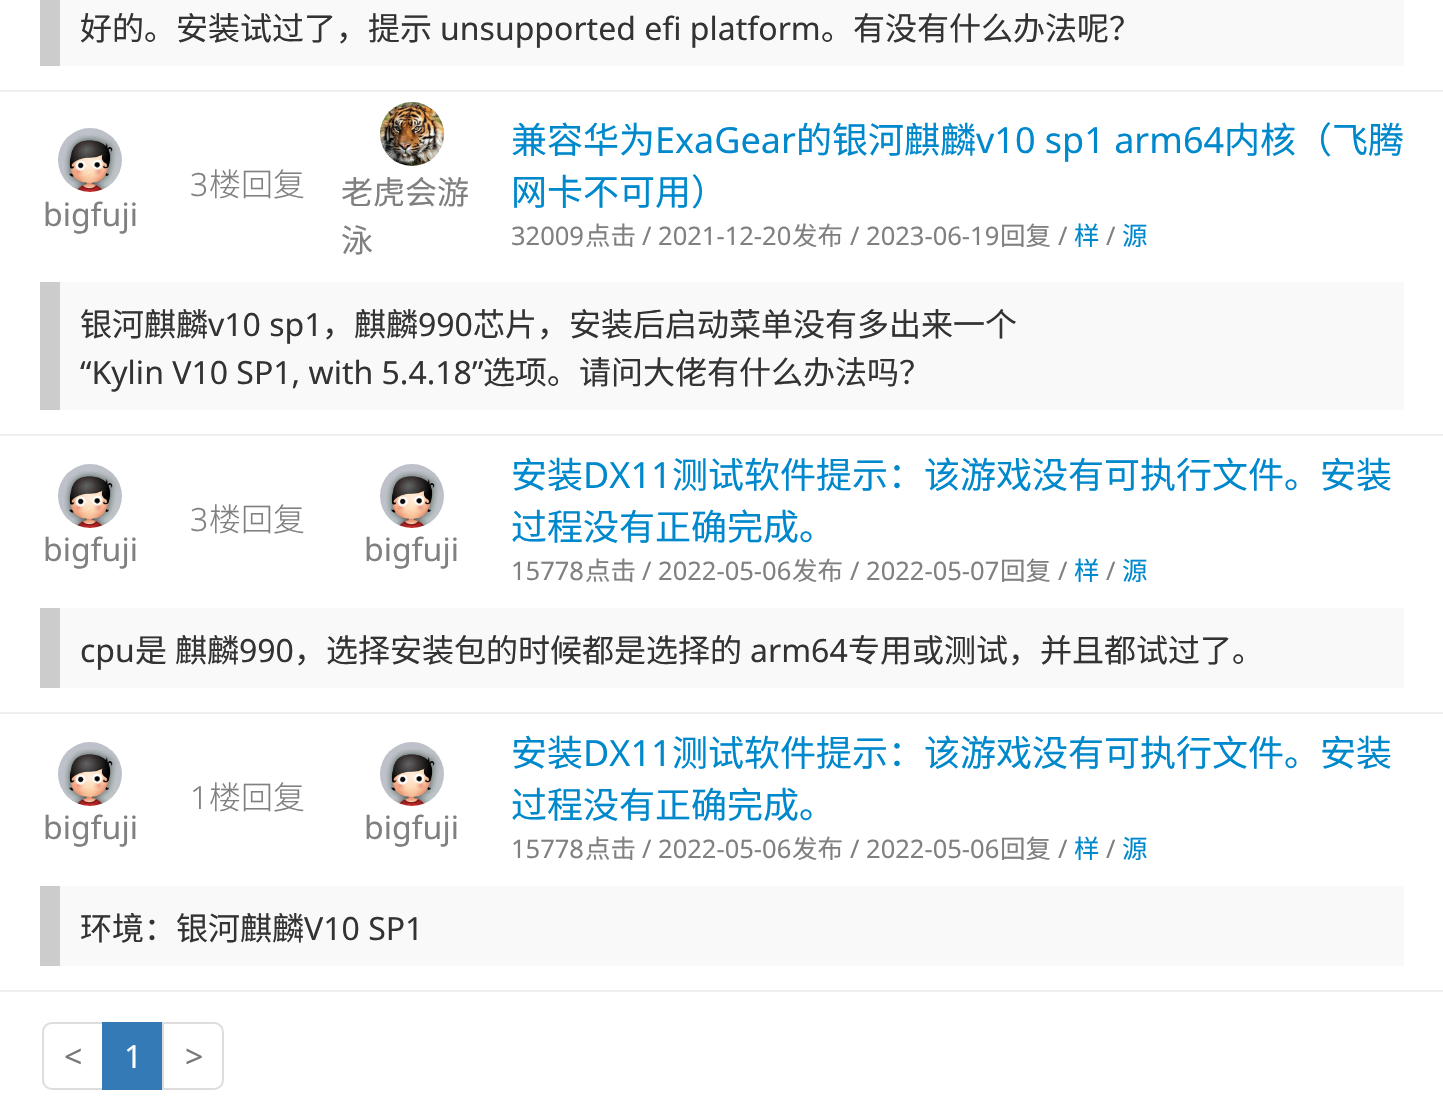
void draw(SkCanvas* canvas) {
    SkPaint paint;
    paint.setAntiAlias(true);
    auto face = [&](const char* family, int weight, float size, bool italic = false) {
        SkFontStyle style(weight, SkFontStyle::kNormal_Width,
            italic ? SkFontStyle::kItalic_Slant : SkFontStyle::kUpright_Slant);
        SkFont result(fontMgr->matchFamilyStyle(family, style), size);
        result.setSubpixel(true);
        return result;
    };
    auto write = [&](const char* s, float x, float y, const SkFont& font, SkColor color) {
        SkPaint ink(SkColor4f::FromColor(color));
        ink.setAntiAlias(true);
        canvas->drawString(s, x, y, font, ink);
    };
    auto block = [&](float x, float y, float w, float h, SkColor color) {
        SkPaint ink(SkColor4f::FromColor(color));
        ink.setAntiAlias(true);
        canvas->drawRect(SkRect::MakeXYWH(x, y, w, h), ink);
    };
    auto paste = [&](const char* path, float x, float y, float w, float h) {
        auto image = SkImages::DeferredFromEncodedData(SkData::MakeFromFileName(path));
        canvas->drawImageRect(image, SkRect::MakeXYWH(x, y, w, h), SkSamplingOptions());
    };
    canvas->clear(SK_ColorWHITE);
    block(0, 90, 1443, 2, SkColorSetRGB(238, 238, 238));
    block(60, 0, 1344, 66, SkColorSetRGB(249, 249, 249));
    block(40, 0, 20, 66, SkColorSetRGB(204, 204, 204));
    auto kFont1 = face("Noto Sans CJK SC", 400, 32);
    write("好的。安装试过了，提示", 80, 40, kFont1, SkColorSetRGB(51, 51, 51));
    auto kFont2 = face("Noto Sans", 400, 32);
    write("unsupported efi platform", 440, 40, kFont2, SkColorSetRGB(51, 51, 51));
    write("。有没有什么办法呢？", 821, 40, kFont1, SkColorSetRGB(51, 51, 51));
    block(0, 434, 1443, 2, SkColorSetRGB(238, 238, 238));
    paste("pic1.png", 58, 128, 64, 64);
    write("bigfuji", 43, 226, kFont2, SkColorSetRGB(128, 128, 128));
    auto kFont3 = face("Noto Sans", 300, 32);
    write("3", 190, 196, kFont3, SkColorSetRGB(128, 128, 128));
    auto kFont4 = face("Noto Sans CJK SC", 300, 32);
    write("楼回复", 209, 196, kFont4, SkColorSetRGB(128, 128, 128));
    paste("pic2.png", 380, 102, 64, 64);
    write("老虎会游", 341, 204, kFont1, SkColorSetRGB(128, 128, 128));
    write("泳", 341, 252, kFont1, SkColorSetRGB(128, 128, 128));
    auto kFont5 = face("Noto Sans CJK SC", 400, 36);
    write("兼容华为", 511, 153, kFont5, SkColorSetRGB(0, 136, 204));
    auto kFont6 = face("Noto Sans", 400, 36);
    write("ExaGear", 655, 153, kFont6, SkColorSetRGB(0, 136, 204));
    write("的银河麒麟", 796, 153, kFont5, SkColorSetRGB(0, 136, 204));
    write("v10 sp1 arm64", 976, 153, kFont6, SkColorSetRGB(0, 136, 204));
    write("内核（飞腾", 1224, 153, kFont5, SkColorSetRGB(0, 136, 204));
    write("网卡不可用）", 511, 205, kFont5, SkColorSetRGB(0, 136, 204));
    auto kFont7 = face("Noto Sans", 400, 25.5f);
    write("32009", 511, 245, kFont7, SkColorSetRGB(128, 128, 128));
    auto kFont8 = face("Noto Sans CJK SC", 400, 25.5f);
    write("点击", 585, 245, kFont8, SkColorSetRGB(128, 128, 128));
    write("/ 2021-12-20", 642, 245, kFont7, SkColorSetRGB(128, 128, 128));
    write("发布", 792, 245, kFont8, SkColorSetRGB(128, 128, 128));
    write("/ 2023-06-19", 850, 245, kFont7, SkColorSetRGB(128, 128, 128));
    write("回复", 1000, 245, kFont8, SkColorSetRGB(128, 128, 128));
    write("/", 1058, 245, kFont7, SkColorSetRGB(128, 128, 128));
    write("样", 1074, 245, kFont8, SkColorSetRGB(0, 136, 204));
    write("/", 1106, 245, kFont7, SkColorSetRGB(128, 128, 128));
    write("源", 1122, 245, kFont8, SkColorSetRGB(0, 136, 204));
    block(60, 282, 1344, 128, SkColorSetRGB(249, 249, 249));
    block(40, 282, 20, 128, SkColorSetRGB(204, 204, 204));
    write("银河麒麟", 80, 336, kFont1, SkColorSetRGB(51, 51, 51));
    write("v10 sp1", 208, 336, kFont2, SkColorSetRGB(51, 51, 51));
    write("，麒麟", 322, 336, kFont1, SkColorSetRGB(51, 51, 51));
    write("990", 418, 336, kFont2, SkColorSetRGB(51, 51, 51));
    write("芯片，安装后启动菜单没有多出来一个", 473, 336, kFont1, SkColorSetRGB(51, 51, 51));
    write("“Kylin V10 SP1, with 5.4.18”", 80, 384, kFont2, SkColorSetRGB(51, 51, 51));
    write("选项。请问大佬有什么办法吗？", 483, 384, kFont1, SkColorSetRGB(51, 51, 51));
    block(0, 712, 1443, 2, SkColorSetRGB(238, 238, 238));
    write("3", 190, 531, kFont3, SkColorSetRGB(128, 128, 128));
    write("楼回复", 209, 531, kFont4, SkColorSetRGB(128, 128, 128));
    write("安装", 511, 488, kFont5, SkColorSetRGB(0, 136, 204));
    write("DX11", 583, 488, kFont6, SkColorSetRGB(0, 136, 204));
    write("测试软件提示：该游戏没有可执行文件。安装", 672, 488, kFont5, SkColorSetRGB(0, 136, 204));
    write("过程没有正确完成。", 511, 540, kFont5, SkColorSetRGB(0, 136, 204));
    write("15778", 511, 580, kFont7, SkColorSetRGB(128, 128, 128));
    write("点击", 585, 580, kFont8, SkColorSetRGB(128, 128, 128));
    write("/ 2022-05-06", 642, 580, kFont7, SkColorSetRGB(128, 128, 128));
    write("发布", 792, 580, kFont8, SkColorSetRGB(128, 128, 128));
    write("/ 2022-05-07", 850, 580, kFont7, SkColorSetRGB(128, 128, 128));
    write("回复", 1000, 580, kFont8, SkColorSetRGB(128, 128, 128));
    write("/", 1058, 580, kFont7, SkColorSetRGB(128, 128, 128));
    write("样", 1074, 580, kFont8, SkColorSetRGB(0, 136, 204));
    write("/", 1106, 580, kFont7, SkColorSetRGB(128, 128, 128));
    write("源", 1122, 580, kFont8, SkColorSetRGB(0, 136, 204));
    paste("pic3.png", 58, 464, 64, 64);
    write("bigfuji", 43, 561, kFont2, SkColorSetRGB(128, 128, 128));
    paste("pic3.png", 380, 464, 64, 64);
    write("bigfuji", 364, 561, kFont2, SkColorSetRGB(128, 128, 128));
    block(60, 608, 1344, 80, SkColorSetRGB(249, 249, 249));
    block(40, 608, 20, 80, SkColorSetRGB(204, 204, 204));
    write("cpu", 80, 662, kFont2, SkColorSetRGB(51, 51, 51));
    write("是", 135, 662, kFont1, SkColorSetRGB(51, 51, 51));
    write("麒麟", 175, 662, kFont1, SkColorSetRGB(51, 51, 51));
    write("990", 239, 662, kFont2, SkColorSetRGB(51, 51, 51));
    write("，选择安装包的时候都是选择的", 294, 662, kFont1, SkColorSetRGB(51, 51, 51));
    write("arm64", 750, 662, kFont2, SkColorSetRGB(51, 51, 51));
    write("专用或测试，并且都试过了。", 848, 662, kFont1, SkColorSetRGB(51, 51, 51));
    block(0, 990, 1443, 2, SkColorSetRGB(238, 238, 238));
    write("1", 190, 809, kFont3, SkColorSetRGB(128, 128, 128));
    write("楼回复", 209, 809, kFont4, SkColorSetRGB(128, 128, 128));
    write("安装", 511, 766, kFont5, SkColorSetRGB(0, 136, 204));
    write("DX11", 583, 766, kFont6, SkColorSetRGB(0, 136, 204));
    write("测试软件提示：该游戏没有可执行文件。安装", 672, 766, kFont5, SkColorSetRGB(0, 136, 204));
    write("过程没有正确完成。", 511, 818, kFont5, SkColorSetRGB(0, 136, 204));
    write("15778", 511, 858, kFont7, SkColorSetRGB(128, 128, 128));
    write("点击", 585, 858, kFont8, SkColorSetRGB(128, 128, 128));
    write("/ 2022-05-06", 642, 858, kFont7, SkColorSetRGB(128, 128, 128));
    write("发布", 792, 858, kFont8, SkColorSetRGB(128, 128, 128));
    write("/ 2022-05-06", 850, 858, kFont7, SkColorSetRGB(128, 128, 128));
    write("回复", 1000, 858, kFont8, SkColorSetRGB(128, 128, 128));
    write("/", 1058, 858, kFont7, SkColorSetRGB(128, 128, 128));
    write("样", 1074, 858, kFont8, SkColorSetRGB(0, 136, 204));
    write("/", 1106, 858, kFont7, SkColorSetRGB(128, 128, 128));
    write("源", 1122, 858, kFont8, SkColorSetRGB(0, 136, 204));
    paste("pic3.png", 58, 742, 64, 64);
    write("bigfuji", 43, 839, kFont2, SkColorSetRGB(128, 128, 128));
    paste("pic3.png", 380, 742, 64, 64);
    write("bigfuji", 364, 839, kFont2, SkColorSetRGB(128, 128, 128));
    block(60, 886, 1344, 80, SkColorSetRGB(249, 249, 249));
    block(40, 886, 20, 80, SkColorSetRGB(204, 204, 204));
    write("环境：银河麒麟", 80, 940, kFont1, SkColorSetRGB(51, 51, 51));
    write("V10 SP1", 304, 940, kFont2, SkColorSetRGB(51, 51, 51));
    paint.setStyle(SkPaint::kStroke_Style);
    paint.setStrokeWidth(2);
    paint.setColor(SkColorSetRGB(221, 221, 221));
    canvas->drawPath(SkPathBuilder().moveTo(52, 1023).lineTo(103, 1023).lineTo(103, 1089).lineTo(52, 1089).cubicTo(47, 1089, 43, 1085, 43, 1080).lineTo(43, 1032).cubicTo(43, 1027, 47, 1023, 52, 1023).close().detach(), paint);
    write("<", 64, 1068, kFont2, SkColorSetRGB(119, 119, 119));
    block(102, 1022, 60, 68, SkColorSetRGB(51, 122, 183));
    write("1", 124, 1068, kFont2, SK_ColorWHITE);
    canvas->drawPath(SkPathBuilder().moveTo(163, 1023).lineTo(214, 1023).cubicTo(219, 1023, 223, 1027, 223, 1032).lineTo(223, 1080).cubicTo(223, 1085, 219, 1089, 214, 1089).lineTo(163, 1089).close().detach(), paint);
    write(">", 185, 1068, kFont2, SkColorSetRGB(119, 119, 119));
}
